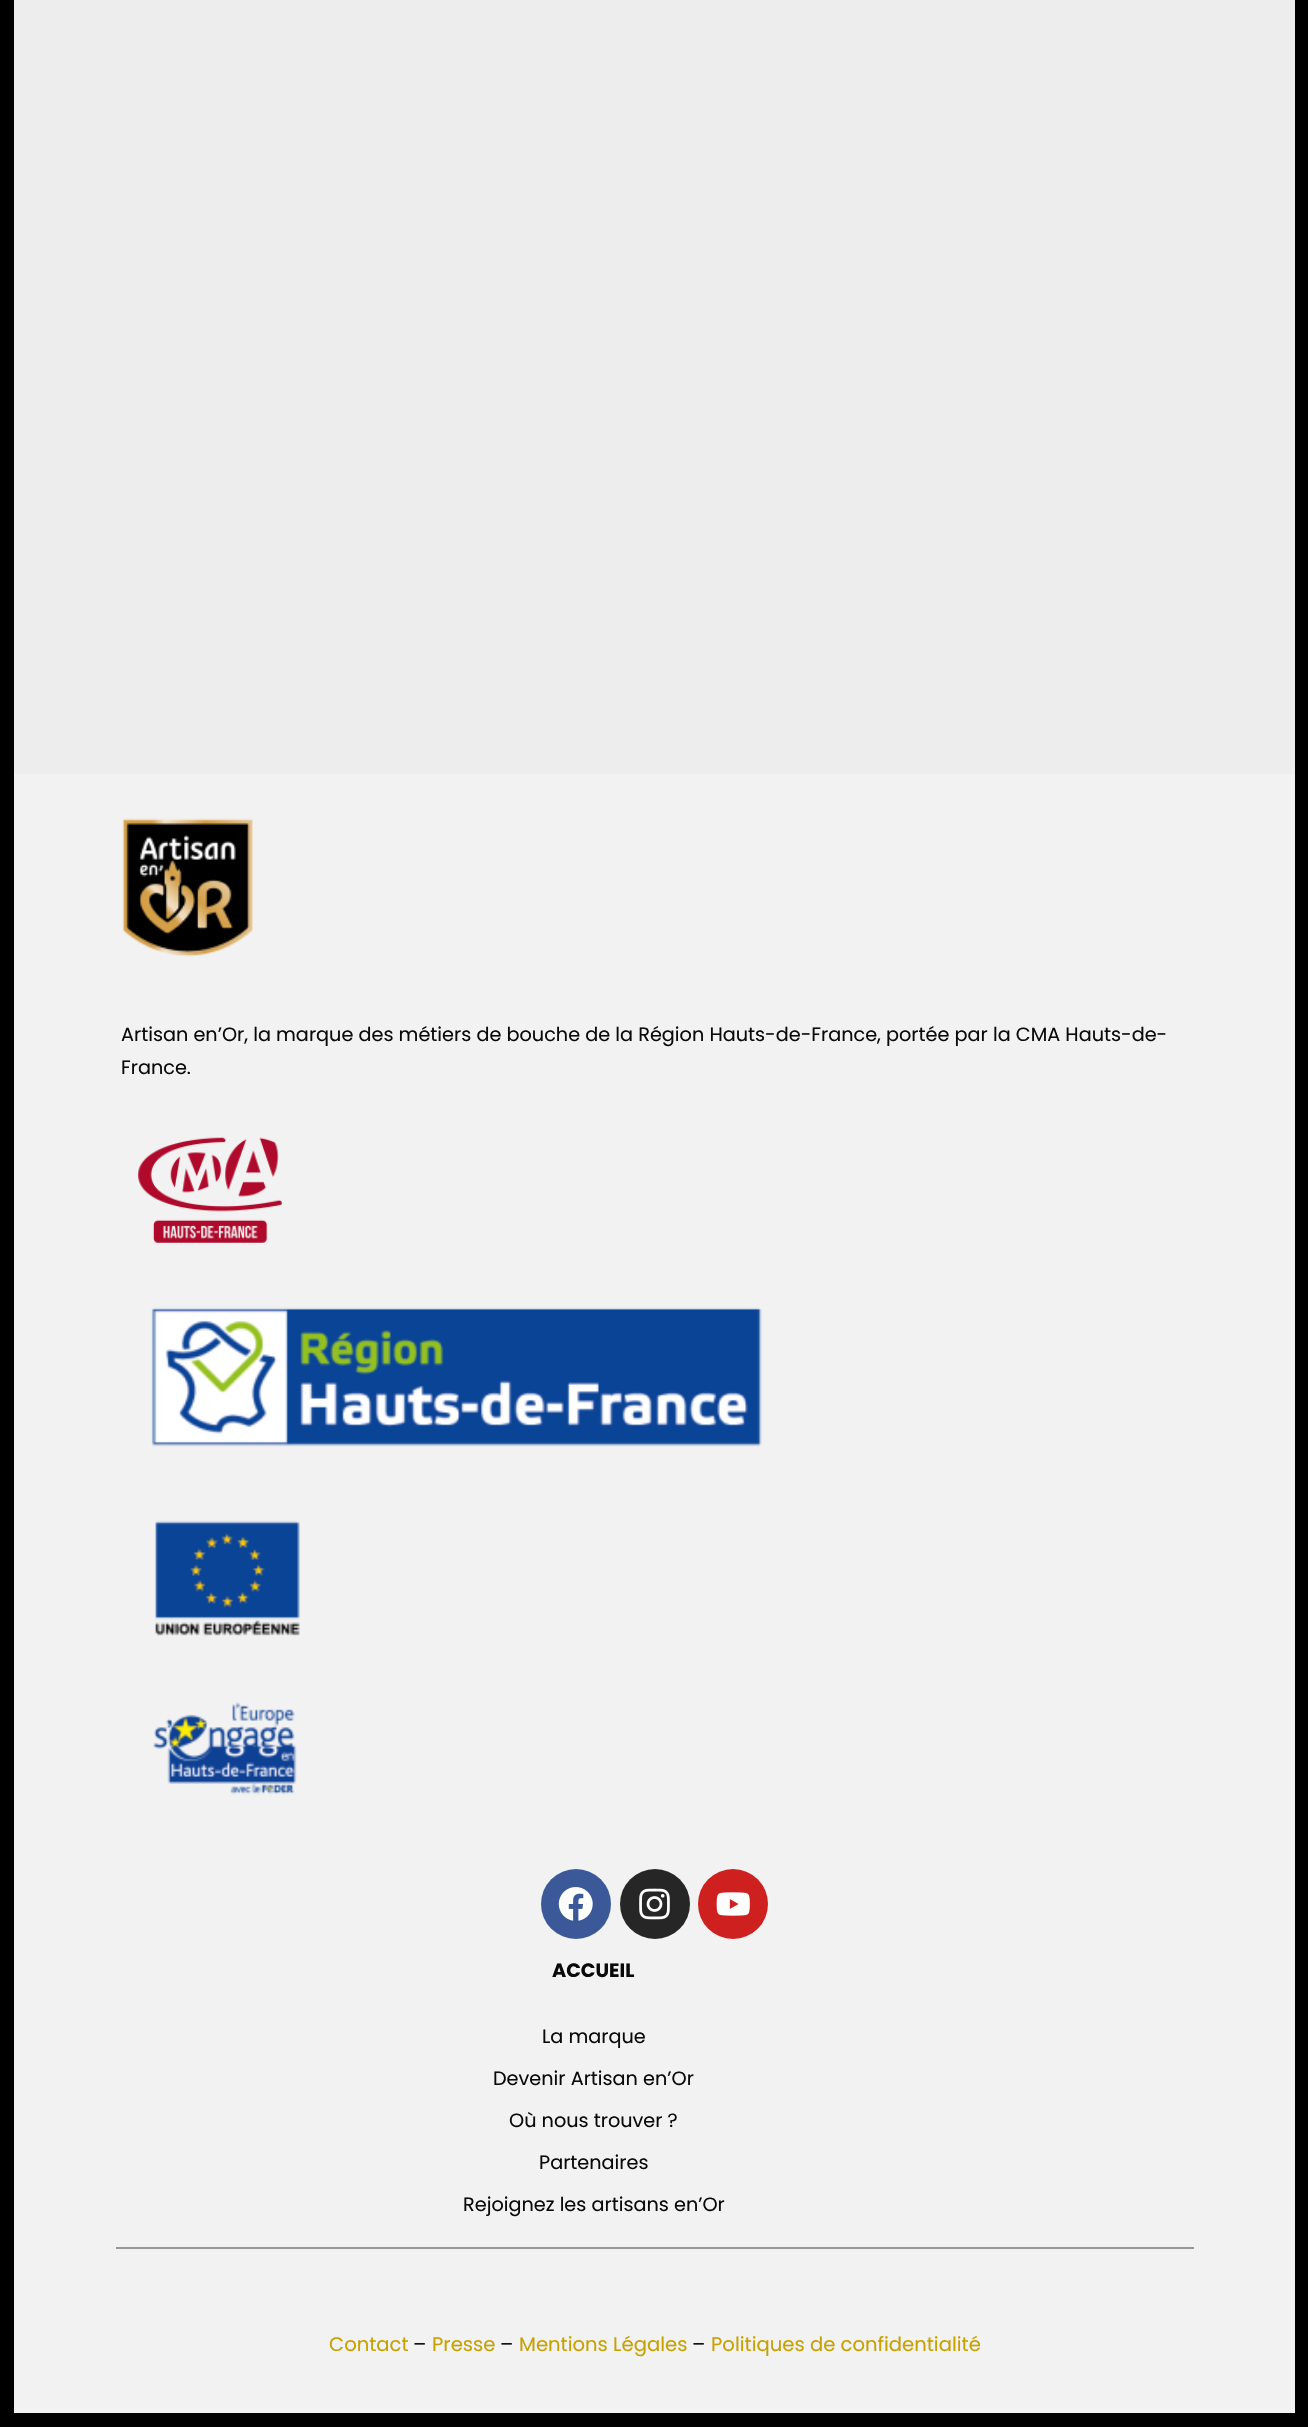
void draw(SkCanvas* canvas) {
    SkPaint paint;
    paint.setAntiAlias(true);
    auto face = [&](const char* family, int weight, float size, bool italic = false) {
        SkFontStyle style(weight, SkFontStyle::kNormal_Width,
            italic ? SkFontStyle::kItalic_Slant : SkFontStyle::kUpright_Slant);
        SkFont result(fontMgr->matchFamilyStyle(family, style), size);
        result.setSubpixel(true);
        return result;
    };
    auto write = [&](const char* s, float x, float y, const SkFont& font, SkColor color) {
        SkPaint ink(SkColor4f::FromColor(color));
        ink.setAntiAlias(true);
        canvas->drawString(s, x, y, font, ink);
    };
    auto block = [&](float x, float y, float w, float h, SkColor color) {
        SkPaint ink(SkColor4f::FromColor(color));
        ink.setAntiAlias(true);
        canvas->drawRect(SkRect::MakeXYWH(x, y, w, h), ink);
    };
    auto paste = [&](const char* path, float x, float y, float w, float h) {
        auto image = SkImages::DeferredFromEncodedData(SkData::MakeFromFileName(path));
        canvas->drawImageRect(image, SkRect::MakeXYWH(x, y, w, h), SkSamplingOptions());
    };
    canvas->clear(SK_ColorBLACK);
    block(14, 0, 1281, 774, SkColorSetRGB(237, 237, 237));
    block(14, 774, 1281, 1639, SkColorSetRGB(242, 242, 242));
    paste("pic1.png", 122, 818, 131, 139);
    auto kFont1 = face("Poppins", 400, 19.25f);
    write("Artisan en’Or, la marque des métiers de bouche de la Région Hauts-de-France, portée par la CMA Hauts-de-", 121, 1041, kFont1, SkColorSetRGB(10, 10, 10));
    write("France.", 121, 1074, kFont1, SkColorSetRGB(10, 10, 10));
    paste("pic2.png", 138, 1137, 144, 106);
    paste("pic3.png", 151, 1307, 611, 140);
    paste("pic4.png", 155, 1520, 145, 116);
    paste("pic5.png", 153, 1702, 144, 93);
    paint.setColor(SkColorSetRGB(59, 89, 152));
    canvas->drawCircle(576, 1904, 35, paint);
    paste("pic6.png", 558, 1887, 35, 34);
    paint.setColor(SkColorSetRGB(38, 38, 38));
    canvas->drawCircle(655, 1904, 35, paint);
    paste("pic7.png", 639, 1888, 31, 32);
    paint.setColor(SkColorSetRGB(205, 32, 31));
    canvas->drawCircle(733, 1904, 35, paint);
    paste("pic8.png", 716, 1892, 34, 24);
    auto kFont2 = face("Poppins", 700, 19.25f);
    write("ACCUEIL", 552, 1977, kFont2, SkColorSetRGB(10, 10, 10));
    write("La marque", 542, 2043, kFont1, SkColorSetRGB(10, 10, 10));
    write("Devenir Artisan en’Or", 493, 2085, kFont1, SkColorSetRGB(10, 10, 10));
    write("Où nous trouver ?", 509, 2127, kFont1, SkColorSetRGB(10, 10, 10));
    write("Partenaires", 539, 2169, kFont1, SkColorSetRGB(10, 10, 10));
    write("Rejoignez les artisans en’Or", 463, 2211, kFont1, SkColorSetRGB(10, 10, 10));
    block(116, 2247, 1078, 2, SkColorSetRGB(151, 151, 151));
    auto kFont3 = face("Poppins", 400, 19.6f);
    write("Contact", 329, 2351, kFont3, SkColorSetRGB(198, 161, 0));
    write("–", 413, 2351, kFont3, SkColorSetRGB(10, 10, 10));
    write("Presse", 432, 2351, kFont3, SkColorSetRGB(198, 161, 0));
    write("–", 500, 2351, kFont3, SkColorSetRGB(10, 10, 10));
    write("Mentions Légales", 519, 2351, kFont3, SkColorSetRGB(198, 161, 0));
    write("–", 692, 2351, kFont3, SkColorSetRGB(10, 10, 10));
    write("Politiques de confidentialité", 711, 2351, kFont3, SkColorSetRGB(198, 161, 0));
}
